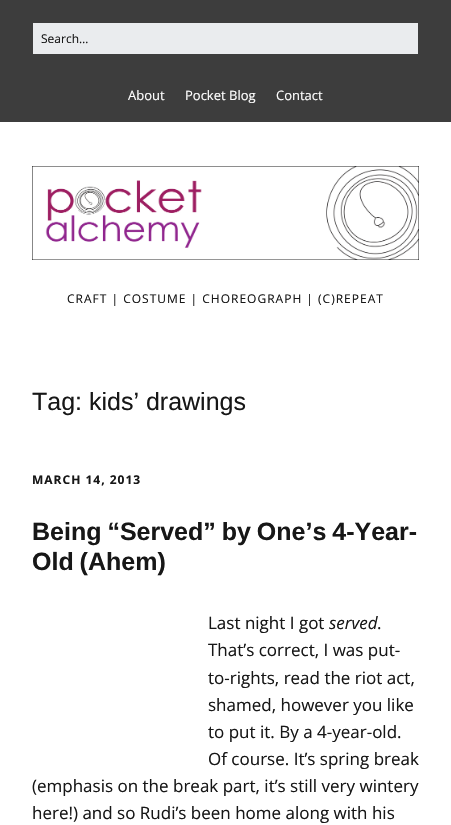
void draw(SkCanvas* canvas) {
    SkPaint paint;
    paint.setAntiAlias(true);
    auto face = [&](const char* family, int weight, float size, bool italic = false) {
        SkFontStyle style(weight, SkFontStyle::kNormal_Width,
            italic ? SkFontStyle::kItalic_Slant : SkFontStyle::kUpright_Slant);
        SkFont result(fontMgr->matchFamilyStyle(family, style), size);
        result.setSubpixel(true);
        return result;
    };
    auto write = [&](const char* s, float x, float y, const SkFont& font, SkColor color) {
        SkPaint ink(SkColor4f::FromColor(color));
        ink.setAntiAlias(true);
        canvas->drawString(s, x, y, font, ink);
    };
    auto writeSpaced = [&](const char* s, float x, float y, const SkFont& font, const SkPaint& ink, float letter, float word) {
        std::vector<SkGlyphID> glyphs(font.countText(s, strlen(s), SkTextEncoding::kUTF8));
        std::vector<float> xs(glyphs.size());
        font.textToGlyphs(s, strlen(s), SkTextEncoding::kUTF8, glyphs);
        font.getXPos(glyphs, xs, x);
        float extra = 0;
        for (size_t i = 0; i < glyphs.size(); i++) {
            xs[i] += extra;
            extra += letter + word * (glyphs[i] == font.unicharToGlyph(' '));
        }
        canvas->drawTextBlob(SkTextBlob::MakeFromPosHGlyphs(glyphs, xs, y, font), 0, 0, ink);
    };
    auto block = [&](float x, float y, float w, float h, SkColor color) {
        SkPaint ink(SkColor4f::FromColor(color));
        ink.setAntiAlias(true);
        canvas->drawRect(SkRect::MakeXYWH(x, y, w, h), ink);
    };
    auto paste = [&](const char* path, float x, float y, float w, float h) {
        auto image = SkImages::DeferredFromEncodedData(SkData::MakeFromFileName(path));
        canvas->drawImageRect(image, SkRect::MakeXYWH(x, y, w, h), SkSamplingOptions());
    };
    canvas->clear(SkColorSetRGB(61, 61, 61));
    block(33, 23, 385, 31, SkColorSetRGB(234, 236, 238));
    auto kFont1 = face("Open Sans", 400, 12);
    write("Search…", 41, 43, kFont1, SkColorSetRGB(23, 23, 23));
    auto kFont2 = face("Open Sans", 400, 13);
    write("About", 128, 100, kFont2, SK_ColorWHITE);
    write("Pocket Blog", 185, 100, kFont2, SK_ColorWHITE);
    write("Contact", 276, 100, kFont2, SK_ColorWHITE);
    block(0, 122, 451, 703, SK_ColorWHITE);
    paste("pic1.png", 32, 166, 387, 94);
    paint.setColor(SkColorSetRGB(23, 23, 23));
    writeSpaced("CRAFT | COSTUME | CHOREOGRAPH | (C)REPEAT", 67, 303, kFont1, paint, 1, 0);
    auto kFont3 = face("Liberation Sans", 400, 25);
    write("Tag: kids’ drawings", 32, 410, kFont3, SkColorSetRGB(23, 23, 23));
    auto kFont4 = face("Open Sans", 700, 12);
    writeSpaced("MARCH 14, 2013", 32, 484, kFont4, paint, 1, 0);
    auto kFont5 = face("Liberation Sans", 700, 25);
    writeSpaced("Being “Served” by One’s 4-Year-", 32, 540, kFont5, paint, 0, -1);
    writeSpaced("Old (Ahem)", 32, 570, kFont5, paint, 0, -1);
    auto kFont6 = face("Open Sans", 400, 17);
    write("Last night I got", 208, 629, kFont6, SkColorSetRGB(23, 23, 23));
    auto kFont7 = face("Open Sans", 400, 17, true);
    write("served", 329, 629, kFont7, SkColorSetRGB(23, 23, 23));
    write(".", 377, 629, kFont6, SkColorSetRGB(23, 23, 23));
    write("That’s correct, I was put-", 208, 656, kFont6, SkColorSetRGB(23, 23, 23));
    write("to-rights, read the riot act,", 208, 684, kFont6, SkColorSetRGB(23, 23, 23));
    write("shamed, however you like", 208, 711, kFont6, SkColorSetRGB(23, 23, 23));
    write("to put it. By a 4-year-old.", 208, 738, kFont6, SkColorSetRGB(23, 23, 23));
    write("Of course. It’s spring break", 208, 765, kFont6, SkColorSetRGB(23, 23, 23));
    write("(emphasis on the break part, it’s still very wintery", 32, 792, kFont6, SkColorSetRGB(23, 23, 23));
    write("here!) and so Rudi’s been home along with his", 32, 819, kFont6, SkColorSetRGB(23, 23, 23));
}
